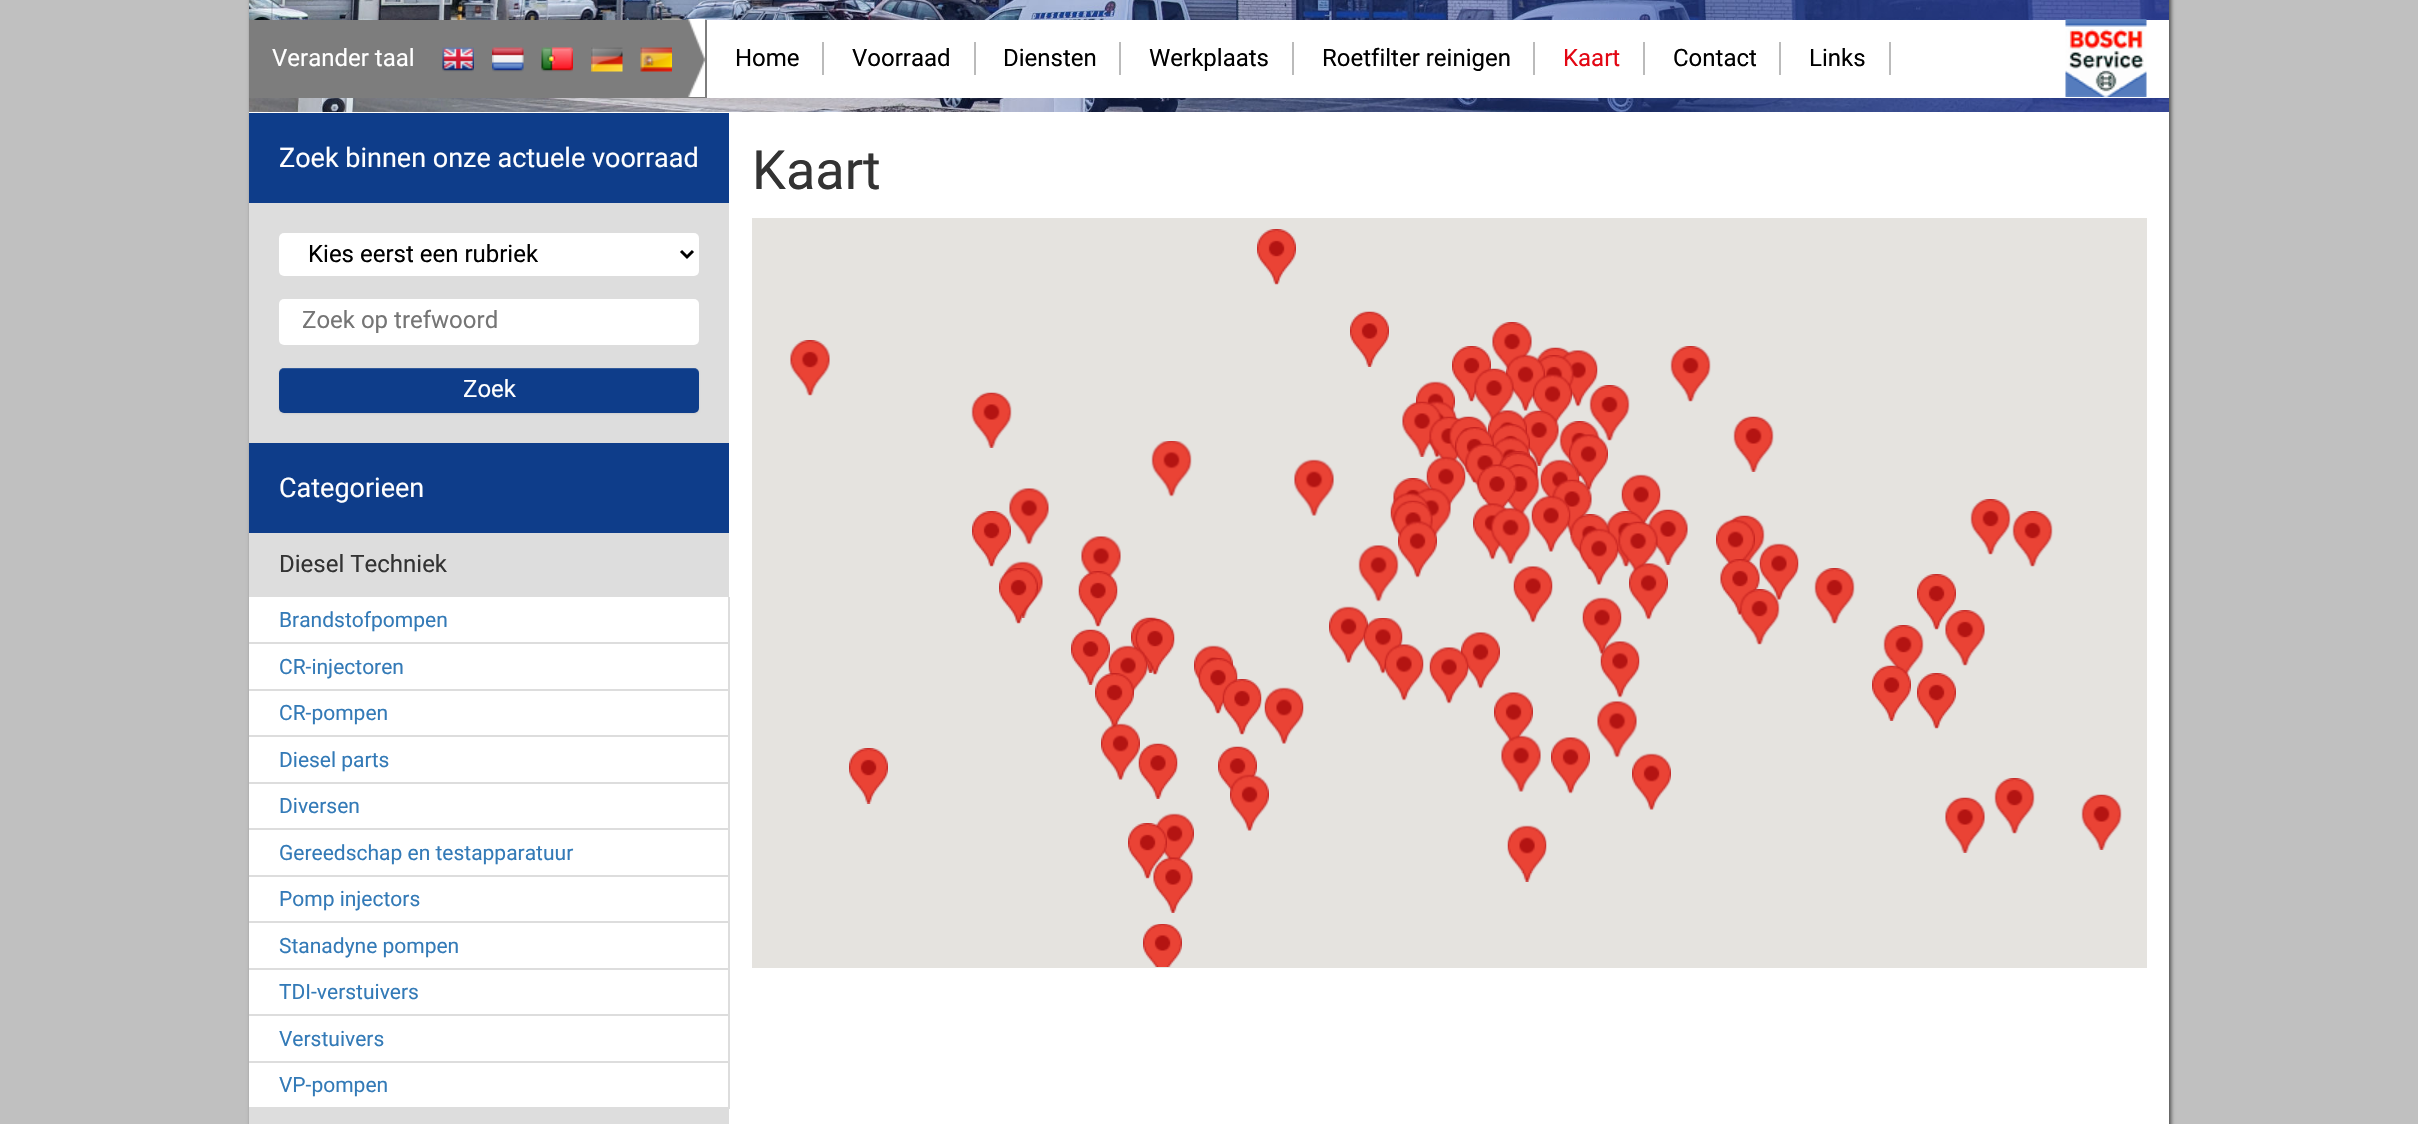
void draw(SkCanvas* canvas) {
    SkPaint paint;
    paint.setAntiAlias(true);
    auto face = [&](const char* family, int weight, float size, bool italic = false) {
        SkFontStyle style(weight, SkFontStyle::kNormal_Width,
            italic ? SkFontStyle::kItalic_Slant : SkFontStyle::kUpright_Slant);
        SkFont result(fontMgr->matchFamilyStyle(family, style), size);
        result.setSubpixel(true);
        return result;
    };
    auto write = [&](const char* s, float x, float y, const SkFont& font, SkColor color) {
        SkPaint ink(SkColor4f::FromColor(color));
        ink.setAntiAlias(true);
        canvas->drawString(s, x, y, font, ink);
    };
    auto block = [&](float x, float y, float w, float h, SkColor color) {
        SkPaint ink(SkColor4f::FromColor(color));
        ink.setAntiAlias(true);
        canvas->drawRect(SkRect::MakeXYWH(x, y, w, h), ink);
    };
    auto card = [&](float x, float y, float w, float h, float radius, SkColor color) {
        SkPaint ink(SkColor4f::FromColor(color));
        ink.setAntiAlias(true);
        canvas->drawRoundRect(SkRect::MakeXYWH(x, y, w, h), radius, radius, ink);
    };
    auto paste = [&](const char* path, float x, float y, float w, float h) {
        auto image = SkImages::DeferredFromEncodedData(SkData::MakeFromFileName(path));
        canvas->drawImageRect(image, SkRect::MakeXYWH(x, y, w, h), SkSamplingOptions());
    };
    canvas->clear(SkColorSetRGB(192, 192, 192));
    paint.setColor(SkColorSetARGB(153, 0, 0, 0));
    paint.setMaskFilter(SkMaskFilter::MakeBlur(kNormal_SkBlurStyle, 2));
    canvas->drawRect(SkRect::MakeXYWH(251, -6, 1920, 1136), paint);
    paint.setMaskFilter(nullptr);
    block(249, 112, 1920, 1012, SK_ColorWHITE);
    paste("pic1.png", 249, 0, 1920, 112);
    block(707, 20, 1462, 78, SK_ColorWHITE);
    block(249, 20, 458, 78, SkColorSetRGB(125, 125, 125));
    paste("pic2.png", 687, 19, 18, 78);
    auto kFont1 = face("Roboto", 400, 24);
    write("Verander taal", 272, 66, kFont1, SK_ColorWHITE);
    paste("pic3.png", 442, 47, 32, 25);
    paste("pic4.png", 492, 47, 32, 25);
    paste("pic5.png", 541, 47, 32, 25);
    paste("pic6.png", 591, 47, 32, 25);
    paste("pic7.png", 640, 47, 32, 25);
    block(822, 42, 2, 33, SkColorSetRGB(187, 187, 187));
    write("Home", 735, 66, kFont1, SK_ColorBLACK);
    block(974, 42, 2, 33, SkColorSetRGB(187, 187, 187));
    write("Voorraad", 852, 66, kFont1, SK_ColorBLACK);
    block(1119, 42, 2, 33, SkColorSetRGB(187, 187, 187));
    write("Diensten", 1003, 66, kFont1, SK_ColorBLACK);
    block(1292, 42, 2, 33, SkColorSetRGB(187, 187, 187));
    write("Werkplaats", 1149, 66, kFont1, SK_ColorBLACK);
    block(1533, 42, 2, 33, SkColorSetRGB(187, 187, 187));
    write("Roetfilter reinigen", 1322, 66, kFont1, SK_ColorBLACK);
    block(1643, 42, 2, 33, SkColorSetRGB(187, 187, 187));
    write("Kaart", 1563, 66, kFont1, SkColorSetRGB(227, 6, 19));
    block(1779, 42, 2, 33, SkColorSetRGB(187, 187, 187));
    write("Contact", 1673, 66, kFont1, SK_ColorBLACK);
    block(1889, 42, 2, 33, SkColorSetRGB(187, 187, 187));
    write("Links", 1809, 66, kFont1, SK_ColorBLACK);
    paste("pic8.png", 2065, 19, 82, 78);
    block(249, 113, 480, 90, SkColorSetRGB(14, 61, 138));
    auto kFont2 = face("Roboto", 400, 27);
    write("Zoek binnen onze actuele voorraad", 279, 167, kFont2, SK_ColorWHITE);
    block(249, 203, 480, 240, SkColorSetRGB(221, 221, 221));
    card(279, 233, 420, 43, 5, SK_ColorWHITE);
    paint.setStyle(SkPaint::kStroke_Style);
    paint.setStrokeWidth(3);
    paint.setColor(SK_ColorBLACK);
    canvas->drawPath(SkPathBuilder().moveTo(681, 251).lineTo(687, 257).lineTo(693, 251).detach(), paint);
    write("Kies eerst een rubriek", 308, 262, kFont1, SK_ColorBLACK);
    card(279, 299, 420, 46, 5, SK_ColorWHITE);
    write("Zoek op trefwoord", 302, 328, kFont1, SkColorSetRGB(117, 117, 117));
    paint.setStyle(SkPaint::kFill_Style);
    paint.setColor(SkColorSetARGB(18, 0, 0, 0));
    paint.setMaskFilter(SkMaskFilter::MakeBlur(kNormal_SkBlurStyle, 1));
    canvas->drawRoundRect(SkRect::MakeXYWH(279, 369, 420, 45), 5, 5, paint);
    paint.setMaskFilter(nullptr);
    card(279, 368, 420, 45, 5, SkColorSetRGB(14, 61, 138));
    paint.setColor(SkColorSetARGB(38, 255, 255, 255));
    canvas->drawPath(SkPathBuilder().moveTo(284, 369).lineTo(694, 369).cubicTo(697, 369, 699, 371, 699, 374).cubicTo(699, 371, 697, 368, 694, 368).lineTo(284, 368).cubicTo(281, 368, 279, 371, 279, 374).cubicTo(279, 371, 281, 369, 284, 369).close().detach(), paint);
    write("Zoek", 463, 397, kFont1, SK_ColorWHITE);
    block(249, 443, 480, 90, SkColorSetRGB(14, 61, 138));
    write("Categorieen", 279, 497, kFont2, SK_ColorWHITE);
    block(249, 533, 480, 64, SkColorSetRGB(221, 221, 221));
    write("Diesel Techniek", 279, 572, kFont1, SkColorSetRGB(51, 51, 51));
    block(728, 597, 2, 93, SkColorSetRGB(221, 221, 221));
    block(249, 642, 480, 2, SkColorSetRGB(221, 221, 221));
    auto kFont3 = face("Roboto", 400, 21);
    write("Brandstofpompen", 279, 627, kFont3, SkColorSetRGB(51, 122, 183));
    block(249, 689, 480, 2, SkColorSetRGB(221, 221, 221));
    write("CR-injectoren", 279, 674, kFont3, SkColorSetRGB(51, 122, 183));
    block(728, 690, 2, 93, SkColorSetRGB(221, 221, 221));
    block(249, 735, 480, 2, SkColorSetRGB(221, 221, 221));
    write("CR-pompen", 279, 720, kFont3, SkColorSetRGB(51, 122, 183));
    block(249, 782, 480, 2, SkColorSetRGB(221, 221, 221));
    write("Diesel parts", 279, 767, kFont3, SkColorSetRGB(51, 122, 183));
    block(728, 783, 2, 93, SkColorSetRGB(221, 221, 221));
    block(249, 828, 480, 2, SkColorSetRGB(221, 221, 221));
    write("Diversen", 279, 813, kFont3, SkColorSetRGB(51, 122, 183));
    block(249, 875, 480, 2, SkColorSetRGB(221, 221, 221));
    write("Gereedschap en testapparatuur", 279, 860, kFont3, SkColorSetRGB(51, 122, 183));
    block(728, 876, 2, 93, SkColorSetRGB(221, 221, 221));
    block(249, 921, 480, 2, SkColorSetRGB(221, 221, 221));
    write("Pomp injectors", 279, 906, kFont3, SkColorSetRGB(51, 122, 183));
    block(249, 968, 480, 2, SkColorSetRGB(221, 221, 221));
    write("Stanadyne pompen", 279, 953, kFont3, SkColorSetRGB(51, 122, 183));
    block(728, 969, 2, 93, SkColorSetRGB(221, 221, 221));
    block(249, 1014, 480, 2, SkColorSetRGB(221, 221, 221));
    write("TDI-verstuivers", 279, 999, kFont3, SkColorSetRGB(51, 122, 183));
    block(249, 1061, 480, 2, SkColorSetRGB(221, 221, 221));
    write("Verstuivers", 279, 1046, kFont3, SkColorSetRGB(51, 122, 183));
    block(728, 1062, 2, 47, SkColorSetRGB(221, 221, 221));
    block(249, 1107, 480, 17, SkColorSetRGB(221, 221, 221));
    write("VP-pompen", 279, 1092, kFont3, SkColorSetRGB(51, 122, 183));
    auto kFont4 = face("Roboto", 400, 54);
    write("Kaart", 752, 189, kFont4, SkColorSetRGB(51, 51, 51));
    block(752, 218, 1395, 750, SkColorSetRGB(229, 227, 223));
    paste("pic9.png", 1257, 229, 39, 56);
    paste("pic10.png", 790, 340, 40, 56);
    paste("pic11.png", 1350, 311, 39, 56);
    paste("pic9.png", 1452, 346, 39, 56);
    paste("pic12.png", 1492, 322, 40, 50);
    paste("pic13.png", 1535, 347, 36, 17);
    paste("pic14.png", 1561, 350, 37, 57);
    paste("pic15.png", 1670, 346, 41, 56);
    paste("pic18.png", 1538, 355, 36, 33);
    paste("pic17.png", 1506, 354, 39, 57);
    paste("pic16.png", 1474, 368, 40, 56);
    paste("pic19.png", 971, 392, 41, 56);
    paste("pic20.png", 1416, 381, 39, 32);
    paste("pic21.png", 1533, 374, 39, 51);
    paste("pic22.png", 1589, 385, 41, 56);
    paste("pic24.png", 1425, 401, 32, 57);
    paste("pic23.png", 1402, 401, 40, 56);
    paste("pic26.png", 1521, 410, 38, 56);
    paste("pic25.png", 1488, 410, 39, 36);
    paste("pic27.png", 1429, 416, 33, 45);
    paste("pic28.png", 1449, 416, 40, 56);
    paste("pic29.png", 1491, 424, 39, 30);
    paste("pic30.png", 1559, 421, 41, 56);
    paste("pic19.png", 1733, 416, 41, 56);
    paste("pic31.png", 1151, 441, 41, 56);
    paste("pic32.png", 1455, 427, 39, 56);
    paste("pic33.png", 1492, 437, 38, 24);
    paste("pic34.png", 1569, 434, 39, 57);
    paste("pic35.png", 1465, 443, 40, 56);
    paste("pic36.png", 1498, 451, 40, 30);
    paste("pic37.png", 1294, 459, 40, 57);
    paste("pic38.png", 1426, 456, 40, 56);
    paste("pic40.png", 1498, 452, 40, 30);
    paste("pic44.png", 1506, 464, 34, 53);
    paste("pic39.png", 1477, 464, 40, 45);
    paste("pic41.png", 1540, 459, 40, 40);
    paste("pic42.png", 1009, 488, 40, 57);
    paste("pic43.png", 1393, 478, 40, 27);
    paste("pic45.png", 1552, 479, 40, 56);
    paste("pic46.png", 1621, 474, 40, 51);
    paste("pic48.png", 1414, 488, 37, 51);
    paste("pic47.png", 1390, 493, 40, 42);
    paste("pic49.png", 1531, 495, 40, 57);
    paste("pic15.png", 1970, 499, 41, 56);
    paste("pic50.png", 1393, 500, 40, 37);
    paste("pic51.png", 1473, 503, 37, 57);
    paste("pic52.png", 972, 511, 39, 56);
    paste("pic53.png", 1491, 507, 40, 57);
    paste("pic55.png", 1606, 511, 40, 56);
    paste("pic54.png", 1570, 514, 40, 56);
    paste("pic56.png", 1648, 509, 40, 56);
    paste("pic57.png", 1727, 515, 38, 48);
    paste("pic15.png", 2012, 511, 41, 56);
    paste("pic58.png", 1081, 536, 40, 42);
    paste("pic60.png", 1398, 521, 39, 57);
    paste("pic59.png", 1358, 545, 41, 57);
    paste("pic62.png", 1618, 521, 40, 51);
    paste("pic61.png", 1579, 528, 40, 57);
    paste("pic63.png", 1716, 519, 39, 46);
    paste("pic64.png", 1759, 543, 40, 57);
    paste("pic65.png", 1004, 561, 39, 57);
    paste("pic66.png", 1513, 566, 40, 57);
    paste("pic67.png", 1629, 563, 39, 57);
    paste("pic68.png", 1720, 559, 40, 56);
    paste("pic69.png", 999, 568, 39, 56);
    paste("pic70.png", 1078, 571, 40, 56);
    paste("pic71.png", 1131, 617, 38, 56);
    paste("pic72.png", 1329, 606, 39, 57);
    paste("pic73.png", 1363, 618, 40, 56);
    paste("pic74.png", 1582, 597, 40, 57);
    paste("pic75.png", 1739, 589, 41, 56);
    paste("pic15.png", 1814, 568, 41, 56);
    paste("pic9.png", 1917, 574, 39, 56);
    paste("pic76.png", 1945, 610, 40, 56);
    paste("pic11.png", 1071, 629, 39, 56);
    paste("pic78.png", 1135, 619, 40, 56);
    paste("pic77.png", 1108, 645, 40, 56);
    paste("pic72.png", 1194, 645, 39, 57);
    paste("pic79.png", 1384, 644, 40, 57);
    paste("pic81.png", 1461, 632, 39, 57);
    paste("pic80.png", 1429, 647, 40, 57);
    paste("pic82.png", 1600, 641, 40, 57);
    paste("pic83.png", 1883, 625, 41, 53);
    paste("pic84.png", 1095, 673, 39, 55);
    paste("pic85.png", 1198, 658, 40, 56);
    paste("pic86.png", 1222, 679, 40, 56);
    paste("pic74.png", 1264, 687, 40, 57);
    paste("pic87.png", 1494, 692, 39, 51);
    paste("pic88.png", 1597, 701, 40, 57);
    paste("pic89.png", 1872, 665, 39, 56);
    paste("pic9.png", 1917, 673, 39, 56);
    paste("pic90.png", 849, 748, 39, 56);
    paste("pic91.png", 1101, 723, 39, 57);
    paste("pic92.png", 1138, 743, 40, 56);
    paste("pic93.png", 1218, 746, 39, 47);
    paste("pic94.png", 1501, 735, 40, 57);
    paste("pic95.png", 1551, 737, 39, 57);
    paste("pic96.png", 1632, 753, 39, 57);
    paste("pic98.png", 1155, 813, 39, 48);
    paste("pic97.png", 1128, 823, 39, 56);
    paste("pic99.png", 1230, 774, 39, 57);
    paste("pic100.png", 1507, 825, 40, 57);
    paste("pic101.png", 1945, 797, 40, 56);
    paste("pic15.png", 1994, 778, 41, 56);
    paste("pic19.png", 2081, 794, 41, 56);
    paste("pic102.png", 1153, 857, 40, 56);
    paste("pic103.png", 1143, 924, 39, 43);
}
